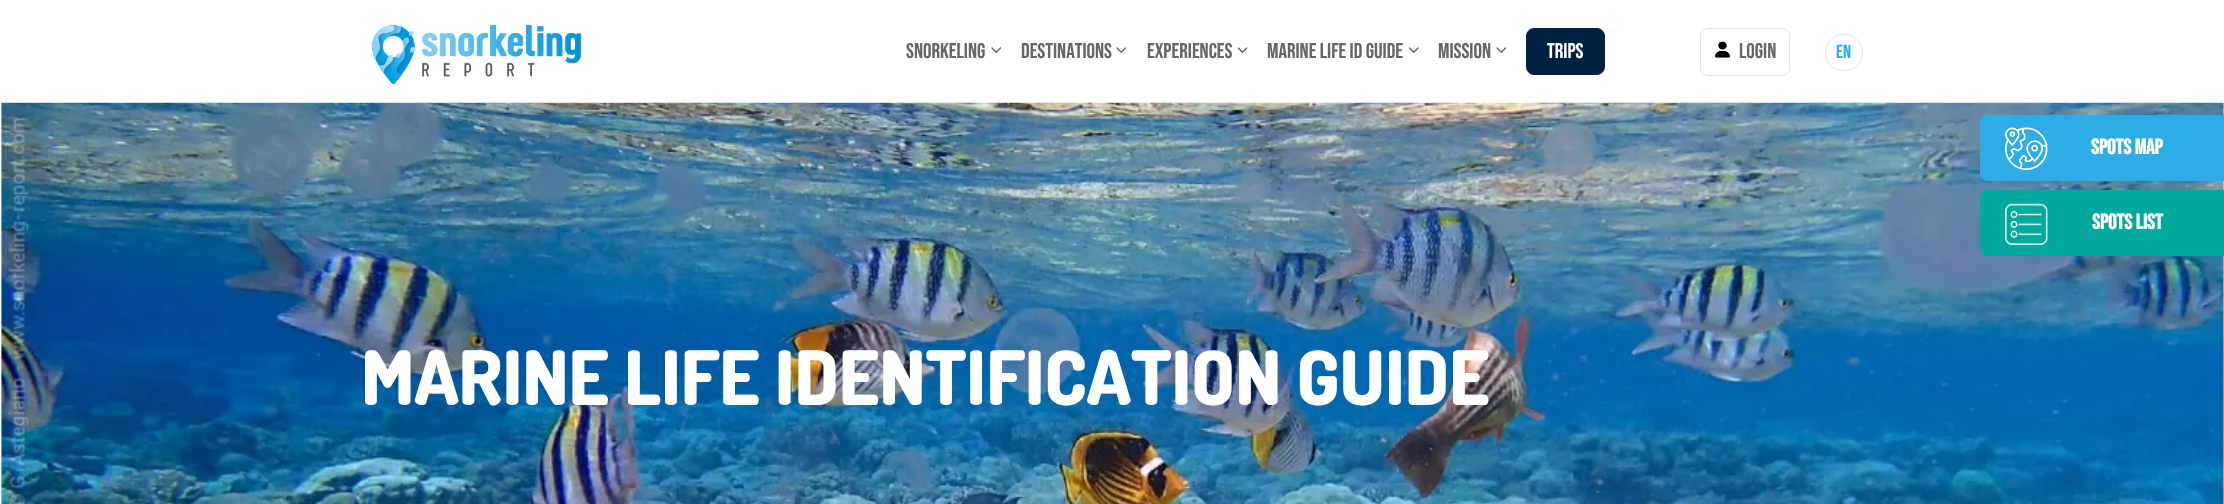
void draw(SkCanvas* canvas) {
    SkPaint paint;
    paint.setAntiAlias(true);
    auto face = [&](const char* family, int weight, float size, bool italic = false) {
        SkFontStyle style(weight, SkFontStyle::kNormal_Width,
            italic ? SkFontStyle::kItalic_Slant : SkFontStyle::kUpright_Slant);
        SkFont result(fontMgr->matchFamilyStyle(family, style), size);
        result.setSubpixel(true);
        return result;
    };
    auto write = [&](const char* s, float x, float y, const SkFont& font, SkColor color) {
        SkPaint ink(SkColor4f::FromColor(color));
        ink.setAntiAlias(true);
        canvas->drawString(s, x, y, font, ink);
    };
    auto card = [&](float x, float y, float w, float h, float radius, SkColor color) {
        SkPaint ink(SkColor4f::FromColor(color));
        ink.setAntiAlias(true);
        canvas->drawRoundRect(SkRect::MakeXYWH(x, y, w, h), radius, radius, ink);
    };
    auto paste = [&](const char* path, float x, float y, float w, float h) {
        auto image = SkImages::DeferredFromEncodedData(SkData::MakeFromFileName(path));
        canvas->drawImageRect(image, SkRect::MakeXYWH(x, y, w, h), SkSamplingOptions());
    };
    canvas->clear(SK_ColorWHITE);
    paste("pic1.png", 371, 24, 211, 61);
    auto kFont1 = face("Bebas Neue", 400, 21.25f);
    write("SNORKELING", 906, 58, kFont1, SkColorSetRGB(102, 102, 102));
    paste("pic2.png", 991, 47, 10, 6);
    write("DESTINATIONS", 1021, 58, kFont1, SkColorSetRGB(102, 102, 102));
    paste("pic2.png", 1116, 47, 10, 6);
    write("EXPERIENCES", 1147, 58, kFont1, SkColorSetRGB(102, 102, 102));
    paste("pic3.png", 1238, 47, 10, 6);
    write("Marine life ID guide", 1267, 58, kFont1, SkColorSetRGB(102, 102, 102));
    paste("pic4.png", 1409, 47, 10, 6);
    write("MISSION", 1438, 58, kFont1, SkColorSetRGB(102, 102, 102));
    paste("pic2.png", 1496, 47, 10, 6);
    paint.setColor(SkColorSetRGB(2, 32, 66));
    canvas->drawRoundRect(SkRect::MakeXYWH(1526.5f, 28.5f, 78, 46), 7.5f, 7.5f, paint);
    paint.setStyle(SkPaint::kStroke_Style);
    paint.setStrokeWidth(1);
    canvas->drawRoundRect(SkRect::MakeXYWH(1526.5f, 28.5f, 78, 46), 7.5f, 7.5f, paint);
    write("Trips", 1547, 58, kFont1, SK_ColorWHITE);
    paste("pic5.png", 1715, 41, 15, 17);
    paint.setColor(SkColorSetRGB(229, 229, 229));
    canvas->drawRoundRect(SkRect::MakeXYWH(1700.5f, 28.5f, 89, 47), 7.5f, 7.5f, paint);
    write("login", 1739, 58, kFont1, SkColorSetRGB(102, 102, 102));
    canvas->drawRoundRect(SkRect::MakeXYWH(1825.5f, 34.5f, 37, 36), 18, 18, paint);
    auto kFont2 = face("Bebas Neue", 400, 19);
    write("EN", 1836, 58, kFont2, SkColorSetRGB(45, 172, 230));
    paste("pic8.png", 1, 102, 2223, 402);
    card(1980, 115, 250, 66, 8, SkColorSetRGB(45, 172, 230));
    paste("pic6.png", 2005, 127, 43, 43);
    auto kFont3 = face("Bebas Neue", 700, 21.25f);
    write("SPOTS MAP", 2091, 154, kFont3, SK_ColorWHITE);
    card(1980, 190, 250, 66, 8, SkColorSetRGB(0, 168, 158));
    paste("pic7.png", 2005, 203, 43, 42);
    write("SPOTS LIST", 2092, 229, kFont3, SK_ColorWHITE);
    auto kFont4 = face("Dosis", 800, 75);
    write("MARINE LIFE IDENTIFICATION GUIDE", 361, 405, kFont4, SK_ColorWHITE);
}
